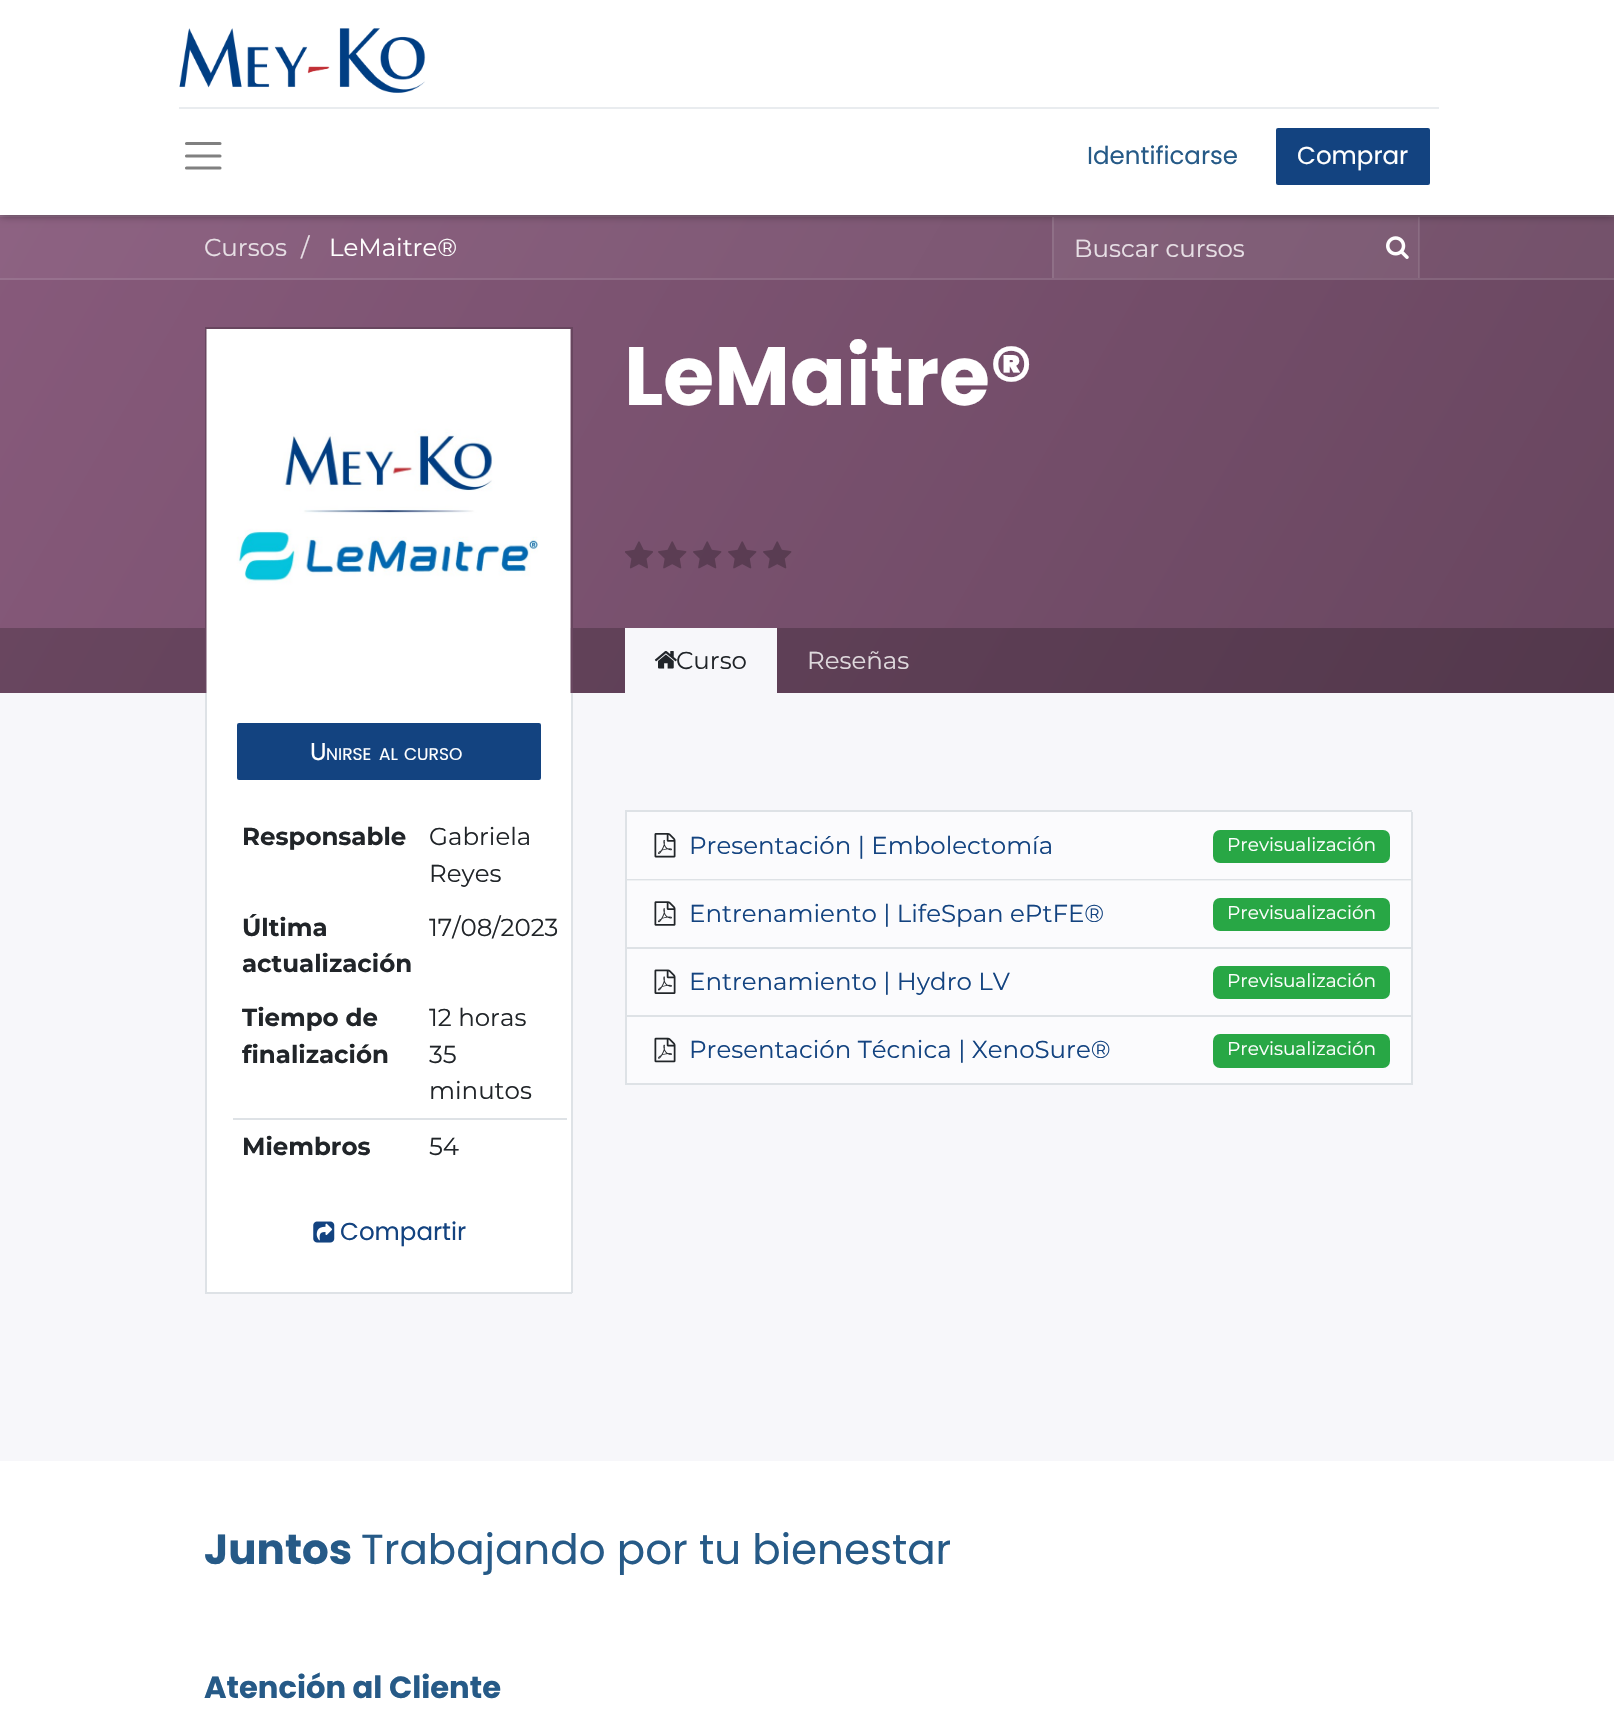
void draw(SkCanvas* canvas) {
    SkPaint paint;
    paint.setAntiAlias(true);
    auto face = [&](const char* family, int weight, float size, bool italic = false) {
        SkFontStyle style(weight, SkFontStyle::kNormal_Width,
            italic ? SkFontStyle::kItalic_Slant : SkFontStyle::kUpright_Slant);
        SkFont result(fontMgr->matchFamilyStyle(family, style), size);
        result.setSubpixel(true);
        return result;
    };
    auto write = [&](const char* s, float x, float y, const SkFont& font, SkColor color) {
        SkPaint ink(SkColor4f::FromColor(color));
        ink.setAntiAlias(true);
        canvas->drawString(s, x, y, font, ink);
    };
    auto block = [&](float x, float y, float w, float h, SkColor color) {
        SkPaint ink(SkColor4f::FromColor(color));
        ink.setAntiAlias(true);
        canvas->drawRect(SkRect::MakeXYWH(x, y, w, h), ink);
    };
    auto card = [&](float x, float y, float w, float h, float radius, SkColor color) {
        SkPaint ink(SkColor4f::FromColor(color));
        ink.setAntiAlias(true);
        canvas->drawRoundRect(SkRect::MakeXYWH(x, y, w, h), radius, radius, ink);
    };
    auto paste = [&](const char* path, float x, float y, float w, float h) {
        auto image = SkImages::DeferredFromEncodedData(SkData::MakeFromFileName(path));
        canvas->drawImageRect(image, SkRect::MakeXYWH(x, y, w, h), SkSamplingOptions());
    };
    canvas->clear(SkColorSetRGB(247, 247, 250));
    block(627, 881, 784, 66, SkColorSetRGB(251, 251, 253));
    {
        const SkColor colors[] = {SkColorSetRGB(141, 98, 130), SkColorSetRGB(112, 79, 103)};
        const float stops[] = {0, 1};
        const SkPoint ends[] = {{98, 45}, {1517, 864}};
        paint.setShader(SkGradientShader::MakeLinear(ends, colors, stops, 2, SkTileMode::kClamp));
        paint.setAlpha(255);
    }
    canvas->drawRect(SkRect::MakeXYWH(0, 217, 1614, 61), paint);
    {
        const SkColor colors[] = {SkColorSetRGB(152, 114, 143), SkColorSetRGB(126, 97, 118)};
        const float stops[] = {0, 1};
        const SkPoint ends[] = {{98, 45}, {1517, 864}};
        paint.setShader(SkGradientShader::MakeLinear(ends, colors, stops, 2, SkTileMode::kClamp));
        paint.setAlpha(255);
    }
    canvas->drawRect(SkRect::MakeXYWH(1419, 217, 1, 61), paint);
    {
        const SkColor colors[] = {SkColorSetRGB(147, 106, 136), SkColorSetRGB(119, 88, 111)};
        const float stops[] = {0, 1};
        const SkPoint ends[] = {{98, 45}, {1517, 864}};
        paint.setShader(SkGradientShader::MakeLinear(ends, colors, stops, 2, SkTileMode::kClamp));
        paint.setAlpha(255);
    }
    canvas->drawRect(SkRect::MakeXYWH(1054, 217, 364, 61), paint);
    {
        const SkColor colors[] = {SkColorSetRGB(158, 121, 148), SkColorSetRGB(133, 105, 125)};
        const float stops[] = {0, 1};
        const SkPoint ends[] = {{98, 45}, {1517, 864}};
        paint.setShader(SkGradientShader::MakeLinear(ends, colors, stops, 2, SkTileMode::kClamp));
        paint.setAlpha(255);
    }
    canvas->drawRect(SkRect::MakeXYWH(1418, 217, 1, 61), paint);
    {
        const SkColor colors[] = {SkColorSetRGB(152, 114, 143), SkColorSetRGB(126, 97, 118)};
        const float stops[] = {0, 1};
        const SkPoint ends[] = {{98, 45}, {1517, 864}};
        paint.setShader(SkGradientShader::MakeLinear(ends, colors, stops, 2, SkTileMode::kClamp));
        paint.setAlpha(255);
    }
    canvas->drawRect(SkRect::MakeXYWH(0, 215, 1614, 2), paint);
    block(1052, 217, 2, 61, SkColorSetRGB(143, 112, 135));
    paint.setShader(nullptr);
    paint.setColor(SkColorSetARGB(128, 0, 0, 0));
    paint.setMaskFilter(SkMaskFilter::MakeBlur(kNormal_SkBlurStyle, 4.5f));
    canvas->drawRect(SkRect::MakeXYWH(0, 0, 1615, 215), paint);
    paint.setMaskFilter(nullptr);
    block(0, 0, 1614, 215, SK_ColorWHITE);
    paste("pic1.png", 179, 28, 247, 65);
    block(179, 107, 1260, 2, SkColorSetRGB(233, 236, 239));
    paint.setStyle(SkPaint::kStroke_Style);
    paint.setStrokeWidth(3.1f);
    paint.setStrokeCap(SkPaint::kRound_Cap);
    paint.setColor(SkColorSetRGB(128, 128, 128));
    canvas->drawPath(SkPathBuilder().moveTo(186.5f, 143.5f).lineTo(220, 143.5f).moveTo(186.5f, 156).lineTo(220, 156).moveTo(186.5f, 168).lineTo(220, 168).detach(), paint);
    auto kFont1 = face("Poppins", 400, 24.5f);
    write("Identificarse", 1087, 164, kFont1, SkColorSetRGB(38, 90, 135));
    paint.setStyle(SkPaint::kFill_Style);
    paint.setColor(SkColorSetRGB(19, 67, 128));
    canvas->drawRoundRect(SkRect::MakeXYWH(1275, 127, 156, 59), 3, 3, paint);
    paint.setStyle(SkPaint::kStroke_Style);
    paint.setStrokeWidth(2);
    paint.setStrokeCap(SkPaint::kButt_Cap);
    paint.setColor(SK_ColorWHITE);
    canvas->drawRoundRect(SkRect::MakeXYWH(1275, 127, 156, 59), 3, 3, paint);
    write("Comprar", 1297, 164, kFont1, SK_ColorWHITE);
    paint.setStyle(SkPaint::kFill_Style);
    {
        const SkColor colors[] = {SkColorSetRGB(135, 90, 123), SkColorSetRGB(104, 70, 95)};
        const float stops[] = {0, 1};
        const SkPoint ends[] = {{98, 45}, {1517, 864}};
        paint.setShader(SkGradientShader::MakeLinear(ends, colors, stops, 2, SkTileMode::kClamp));
        paint.setAlpha(255);
    }
    canvas->drawRect(SkRect::MakeXYWH(0, 280, 1614, 348), paint);
    {
        const SkColor colors[] = {SkColorSetRGB(152, 114, 143), SkColorSetRGB(126, 97, 118)};
        const float stops[] = {0, 1};
        const SkPoint ends[] = {{98, 45}, {1517, 864}};
        paint.setShader(SkGradientShader::MakeLinear(ends, colors, stops, 2, SkTileMode::kClamp));
        paint.setAlpha(255);
    }
    canvas->drawRect(SkRect::MakeXYWH(0, 278, 1614, 2), paint);
    {
        const SkColor colors[] = {SkColorSetRGB(108, 72, 98), SkColorSetRGB(83, 56, 76)};
        const float stops[] = {0, 1};
        const SkPoint ends[] = {{98, 45}, {1517, 864}};
        paint.setShader(SkGradientShader::MakeLinear(ends, colors, stops, 2, SkTileMode::kClamp));
        paint.setAlpha(255);
    }
    canvas->drawRect(SkRect::MakeXYWH(0, 628, 1614, 65), paint);
    auto kFont2 = face("Montserrat", 400, 24.5f);
    write("Cursos", 204, 256, kFont2, SkColorSetRGB(231, 223, 229));
    write("/", 301, 256, kFont2, SkColorSetRGB(231, 223, 229));
    write("LeMaitre®", 329, 256, kFont2, SK_ColorWHITE);
    write("Buscar cursos", 1074, 257, kFont2, SkColorSetRGB(231, 223, 229));
    paste("pic2.png", 1386, 236, 23, 23);
    block(205, 327, 367, 2, SkColorSetRGB(104, 70, 95));
    block(571, 327, 2, 366, SkColorSetRGB(104, 70, 95));
    block(205, 327, 2, 366, SkColorSetRGB(104, 70, 95));
    paste("pic3.png", 206, 329, 365, 364);
    auto kFont3 = face("Poppins", 700, 82.5f);
    write("LeMaitre®", 624, 405, kFont3, SK_ColorWHITE);
    paste("pic4.png", 625, 541, 28, 28);
    paste("pic5.png", 658, 541, 29, 28);
    paste("pic6.png", 693, 541, 29, 28);
    paste("pic7.png", 728, 541, 29, 28);
    paste("pic8.png", 763, 541, 29, 28);
    block(207, 693, 364, 599, SK_ColorWHITE);
    block(571, 693, 2, 600, SkColorSetRGB(222, 226, 230));
    block(205, 1292, 367, 2, SkColorSetRGB(222, 226, 230));
    block(205, 693, 2, 600, SkColorSetRGB(222, 226, 230));
    paint.setShader(nullptr);
    paint.setColor(SkColorSetRGB(19, 67, 128));
    canvas->drawRoundRect(SkRect::MakeXYWH(236, 722, 306, 59), 3, 3, paint);
    paint.setStyle(SkPaint::kStroke_Style);
    paint.setColor(SK_ColorWHITE);
    canvas->drawRoundRect(SkRect::MakeXYWH(236, 722, 306, 59), 3, 3, paint);
    write("U", 310, 760, kFont1, SK_ColorWHITE);
    auto kFont4 = face("Poppins", 400, 17);
    write("NIRSE", 326, 760, kFont4, SK_ColorWHITE);
    write("AL", 379, 760, kFont4, SK_ColorWHITE);
    write("CURSO", 404, 760, kFont4, SK_ColorWHITE);
    auto kFont5 = face("Montserrat", 700, 24.5f);
    write("Responsable", 242, 845, kFont5, SkColorSetRGB(33, 37, 41));
    write("Gabriela", 429, 845, kFont2, SkColorSetRGB(33, 37, 41));
    write("Reyes", 429, 882, kFont2, SkColorSetRGB(33, 37, 41));
    write("Última", 242, 936, kFont5, SkColorSetRGB(33, 37, 41));
    write("actualización", 242, 972, kFont5, SkColorSetRGB(33, 37, 41));
    write("17/08/2023", 429, 936, kFont2, SkColorSetRGB(33, 37, 41));
    write("Tiempo de", 242, 1026, kFont5, SkColorSetRGB(33, 37, 41));
    write("finalización", 242, 1063, kFont5, SkColorSetRGB(33, 37, 41));
    write("12 horas", 429, 1026, kFont2, SkColorSetRGB(33, 37, 41));
    write("35", 429, 1063, kFont2, SkColorSetRGB(33, 37, 41));
    write("minutos", 429, 1099, kFont2, SkColorSetRGB(33, 37, 41));
    write("Miembros", 242, 1155, kFont5, SkColorSetRGB(33, 37, 41));
    block(233, 1118, 334, 2, SkColorSetRGB(222, 226, 230));
    write("54", 429, 1155, kFont2, SkColorSetRGB(33, 37, 41));
    paste("pic9.png", 313, 1221, 22, 22);
    write("Compartir", 340, 1240, kFont1, SkColorSetRGB(19, 67, 128));
    block(625, 628, 152, 65, SkColorSetRGB(247, 247, 250));
    paste("pic10.png", 654, 651, 23, 18);
    write("Curso", 676, 669, kFont2, SkColorSetRGB(33, 37, 41));
    write("Reseñas", 807, 669, kFont2, SkColorSetRGB(223, 217, 221));
    block(625, 810, 787, 2, SkColorSetRGB(222, 226, 230));
    block(627, 812, 784, 67, SkColorSetRGB(251, 251, 253));
    block(1411, 812, 2, 68, SkColorSetRGB(222, 226, 230));
    block(625, 879, 787, 1, SkColorSetRGB(222, 226, 230));
    block(625, 880, 787, 1, SkColorSetRGB(239, 241, 243));
    block(625, 812, 2, 68, SkColorSetRGB(222, 226, 230));
    paste("pic11.png", 654, 833, 22, 25);
    write("Presentación | Embolectomía", 689, 854, kFont2, SkColorSetRGB(19, 67, 128));
    card(1213, 830, 177, 33, 7, SkColorSetRGB(40, 167, 69));
    auto kFont6 = face("Montserrat", 400, 18.5f);
    write("Previsualización", 1227, 851, kFont6, SK_ColorWHITE);
    block(1411, 880, 2, 205, SkColorSetRGB(222, 226, 230));
    block(625, 947, 787, 2, SkColorSetRGB(222, 226, 230));
    block(625, 880, 2, 69, SkColorSetRGB(222, 226, 230));
    paste("pic12.png", 654, 901, 22, 25);
    write("Entrenamiento | LifeSpan ePtFE®", 689, 922, kFont2, SkColorSetRGB(19, 67, 128));
    card(1213, 898, 177, 33, 7, SkColorSetRGB(40, 167, 69));
    write("Previsualización", 1227, 919, kFont6, SK_ColorWHITE);
    block(627, 949, 784, 66, SkColorSetRGB(251, 251, 253));
    block(625, 1015, 787, 2, SkColorSetRGB(222, 226, 230));
    block(625, 949, 2, 68, SkColorSetRGB(222, 226, 230));
    paste("pic13.png", 654, 969, 22, 25);
    write("Entrenamiento | Hydro LV", 689, 990, kFont2, SkColorSetRGB(19, 67, 128));
    card(1213, 966, 177, 33, 7, SkColorSetRGB(40, 167, 69));
    write("Previsualización", 1227, 987, kFont6, SK_ColorWHITE);
    block(627, 1017, 784, 66, SkColorSetRGB(251, 251, 253));
    block(625, 1083, 787, 2, SkColorSetRGB(222, 226, 230));
    block(625, 1017, 2, 68, SkColorSetRGB(222, 226, 230));
    paste("pic14.png", 654, 1037, 22, 26);
    write("Presentación Técnica | XenoSure®", 689, 1058, kFont2, SkColorSetRGB(19, 67, 128));
    card(1213, 1034, 177, 34, 7, SkColorSetRGB(40, 167, 69));
    write("Previsualización", 1227, 1055, kFont6, SK_ColorWHITE);
    block(0, 1461, 1614, 255, SK_ColorWHITE);
    auto kFont7 = face("Poppins", 700, 42);
    write("Juntos", 204, 1564, kFont7, SkColorSetRGB(38, 90, 135));
    auto kFont8 = face("Poppins", 400, 42);
    write("Trabajando por tu bienestar", 361, 1564, kFont8, SkColorSetRGB(38, 90, 135));
    auto kFont9 = face("Poppins", 700, 30.6f);
    write("Atención al Cliente", 204, 1698, kFont9, SkColorSetRGB(38, 90, 135));
}
